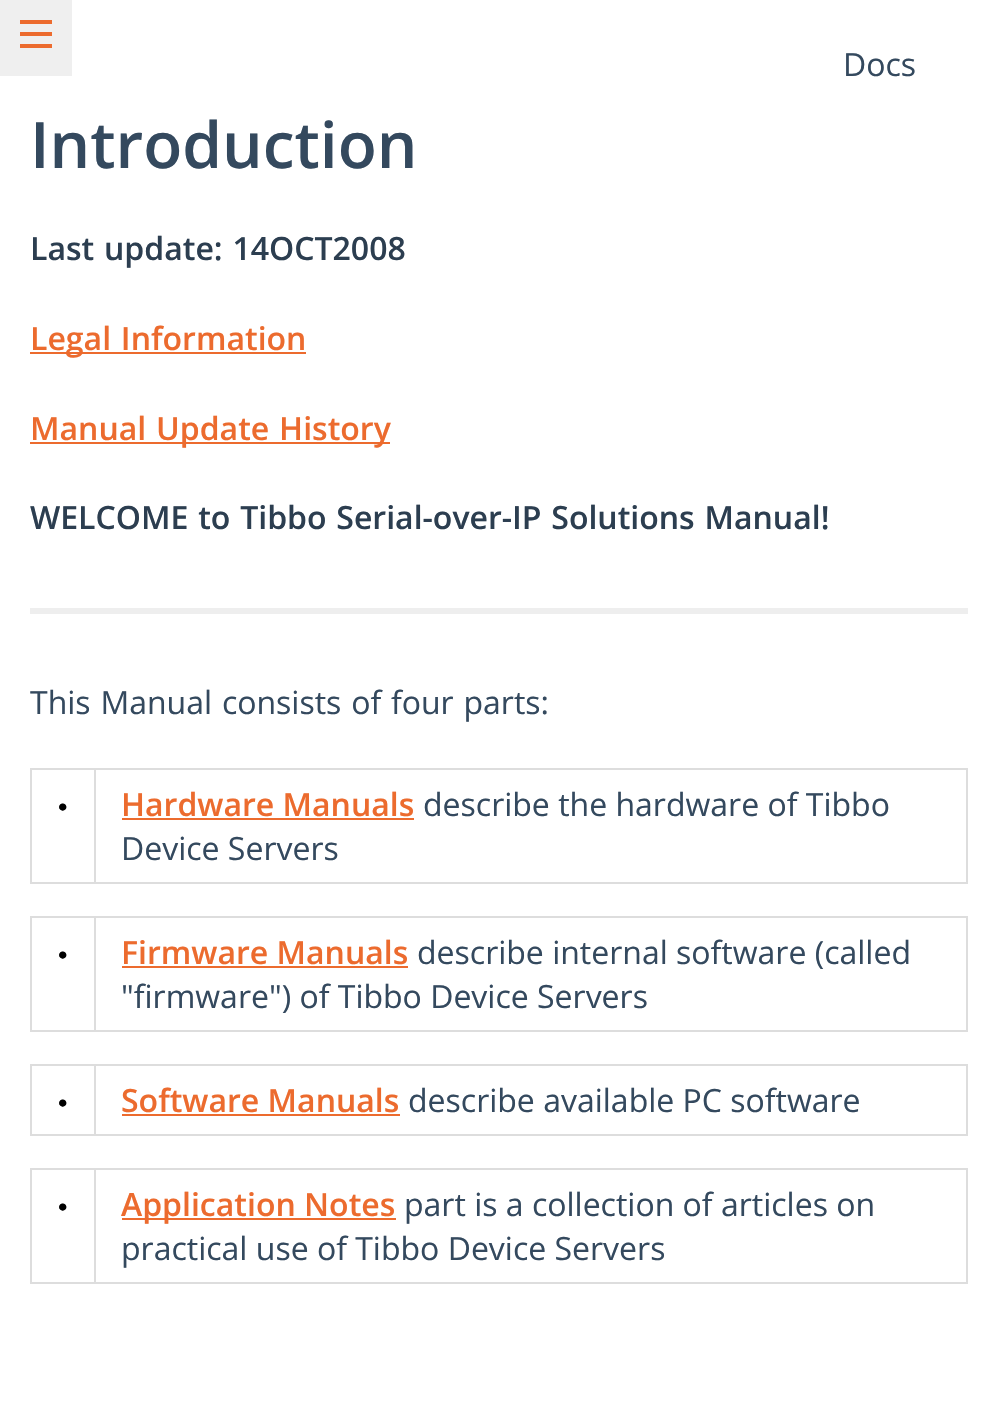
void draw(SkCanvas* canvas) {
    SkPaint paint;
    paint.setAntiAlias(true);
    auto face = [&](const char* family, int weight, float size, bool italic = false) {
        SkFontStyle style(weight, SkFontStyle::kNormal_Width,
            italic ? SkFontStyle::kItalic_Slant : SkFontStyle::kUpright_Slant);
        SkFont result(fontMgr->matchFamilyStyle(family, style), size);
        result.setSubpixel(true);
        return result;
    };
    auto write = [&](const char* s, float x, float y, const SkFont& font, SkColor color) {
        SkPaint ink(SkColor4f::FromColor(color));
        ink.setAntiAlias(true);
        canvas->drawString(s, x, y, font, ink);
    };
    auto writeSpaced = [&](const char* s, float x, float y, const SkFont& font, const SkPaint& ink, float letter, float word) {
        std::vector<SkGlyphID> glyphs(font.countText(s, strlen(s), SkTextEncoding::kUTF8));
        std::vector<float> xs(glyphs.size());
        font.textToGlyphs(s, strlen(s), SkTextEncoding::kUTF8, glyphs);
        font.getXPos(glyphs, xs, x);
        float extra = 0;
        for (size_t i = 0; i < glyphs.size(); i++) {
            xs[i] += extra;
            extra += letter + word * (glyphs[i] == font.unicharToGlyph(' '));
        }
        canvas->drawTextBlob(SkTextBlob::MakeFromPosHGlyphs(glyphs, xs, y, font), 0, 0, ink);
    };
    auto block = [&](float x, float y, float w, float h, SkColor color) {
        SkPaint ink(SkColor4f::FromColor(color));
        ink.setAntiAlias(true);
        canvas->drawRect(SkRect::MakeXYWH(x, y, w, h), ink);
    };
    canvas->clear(SK_ColorWHITE);
    auto kFont1 = face("Open Sans", 400, 32);
    write("Docs", 843, 76, kFont1, SkColorSetRGB(52, 73, 94));
    block(0, 0, 72, 76, SkColorSetRGB(239, 239, 239));
    block(20, 20, 32, 4, SkColorSetRGB(236, 107, 46));
    block(20, 32, 32, 4, SkColorSetRGB(236, 107, 46));
    block(20, 44, 32, 4, SkColorSetRGB(236, 107, 46));
    auto kFont2 = face("Open Sans", 600, 64);
    write("Introduction", 30, 168, kFont2, SkColorSetRGB(52, 73, 94));
    auto kFont3 = face("Open Sans", 600, 32);
    paint.setColor(SkColorSetRGB(44, 62, 80));
    writeSpaced("Last update: 14OCT2008", 30, 260, kFont3, paint, 0, 1.5f);
    block(30, 352, 276, 2, SkColorSetRGB(236, 107, 46));
    paint.setColor(SkColorSetRGB(236, 107, 46));
    writeSpaced("Legal Information", 30, 350, kFont3, paint, 0, 1.5f);
    block(30, 442, 360, 2, SkColorSetRGB(236, 107, 46));
    writeSpaced("Manual Update History", 30, 440, kFont3, paint, 0, 1.5f);
    paint.setColor(SkColorSetRGB(44, 62, 80));
    writeSpaced("WELCOME to Tibbo Serial-over-IP Solutions Manual!", 30, 529, kFont3, paint, 0, 1.5f);
    block(30, 608, 938, 6, SkColorSetRGB(238, 238, 238));
    paint.setColor(SkColorSetRGB(52, 73, 94));
    writeSpaced("This Manual consists of four parts:", 30, 714, kFont1, paint, 0, 1.5f);
    block(94, 768, 874, 2, SkColorSetRGB(221, 221, 221));
    block(966, 768, 2, 116, SkColorSetRGB(221, 221, 221));
    block(94, 882, 874, 2, SkColorSetRGB(221, 221, 221));
    block(94, 768, 2, 116, SkColorSetRGB(221, 221, 221));
    block(30, 768, 66, 2, SkColorSetRGB(221, 221, 221));
    block(30, 882, 66, 2, SkColorSetRGB(221, 221, 221));
    block(30, 768, 2, 116, SkColorSetRGB(221, 221, 221));
    auto kFont4 = face("Liberation Sans", 400, 27);
    write("•", 58, 816, kFont4, SK_ColorBLACK);
    write("Hardware Manuals", 121, 816, kFont3, SkColorSetRGB(236, 107, 46));
    block(122, 818, 292, 2, SkColorSetRGB(236, 107, 46));
    write("describe the hardware of Tibbo", 423, 816, kFont1, SkColorSetRGB(52, 73, 94));
    write("Device Servers", 121, 860, kFont1, SkColorSetRGB(52, 73, 94));
    block(94, 916, 874, 2, SkColorSetRGB(221, 221, 221));
    block(966, 916, 2, 116, SkColorSetRGB(221, 221, 221));
    block(94, 1030, 874, 2, SkColorSetRGB(221, 221, 221));
    block(94, 916, 2, 116, SkColorSetRGB(221, 221, 221));
    block(30, 916, 66, 2, SkColorSetRGB(221, 221, 221));
    block(30, 1030, 66, 2, SkColorSetRGB(221, 221, 221));
    block(30, 916, 2, 116, SkColorSetRGB(221, 221, 221));
    write("•", 58, 964, kFont4, SK_ColorBLACK);
    write("Firmware Manuals", 121, 964, kFont3, SkColorSetRGB(236, 107, 46));
    block(122, 966, 286, 2, SkColorSetRGB(236, 107, 46));
    write("describe internal software (called", 417, 964, kFont1, SkColorSetRGB(52, 73, 94));
    write("\"firmware\") of Tibbo Device Servers", 121, 1008, kFont1, SkColorSetRGB(52, 73, 94));
    block(94, 1064, 874, 2, SkColorSetRGB(221, 221, 221));
    block(966, 1064, 2, 72, SkColorSetRGB(221, 221, 221));
    block(94, 1134, 874, 2, SkColorSetRGB(221, 221, 221));
    block(94, 1064, 2, 72, SkColorSetRGB(221, 221, 221));
    block(30, 1064, 66, 2, SkColorSetRGB(221, 221, 221));
    block(30, 1134, 66, 2, SkColorSetRGB(221, 221, 221));
    block(30, 1064, 2, 72, SkColorSetRGB(221, 221, 221));
    write("•", 58, 1112, kFont4, SK_ColorBLACK);
    write("Software Manuals", 121, 1112, kFont3, SkColorSetRGB(236, 107, 46));
    block(122, 1114, 278, 2, SkColorSetRGB(236, 107, 46));
    write("describe available PC software", 408, 1112, kFont1, SkColorSetRGB(52, 73, 94));
    block(94, 1168, 874, 2, SkColorSetRGB(221, 221, 221));
    block(966, 1168, 2, 116, SkColorSetRGB(221, 221, 221));
    block(94, 1282, 874, 2, SkColorSetRGB(221, 221, 221));
    block(94, 1168, 2, 116, SkColorSetRGB(221, 221, 221));
    block(30, 1168, 66, 2, SkColorSetRGB(221, 221, 221));
    block(30, 1282, 66, 2, SkColorSetRGB(221, 221, 221));
    block(30, 1168, 2, 116, SkColorSetRGB(221, 221, 221));
    write("•", 58, 1216, kFont4, SK_ColorBLACK);
    block(122, 1218, 274, 2, SkColorSetRGB(236, 107, 46));
    write("Application Notes", 121, 1216, kFont3, SkColorSetRGB(236, 107, 46));
    write("part is a collection of articles on", 404, 1216, kFont1, SkColorSetRGB(52, 73, 94));
    write("practical use of Tibbo Device Servers", 121, 1260, kFont1, SkColorSetRGB(52, 73, 94));
}
